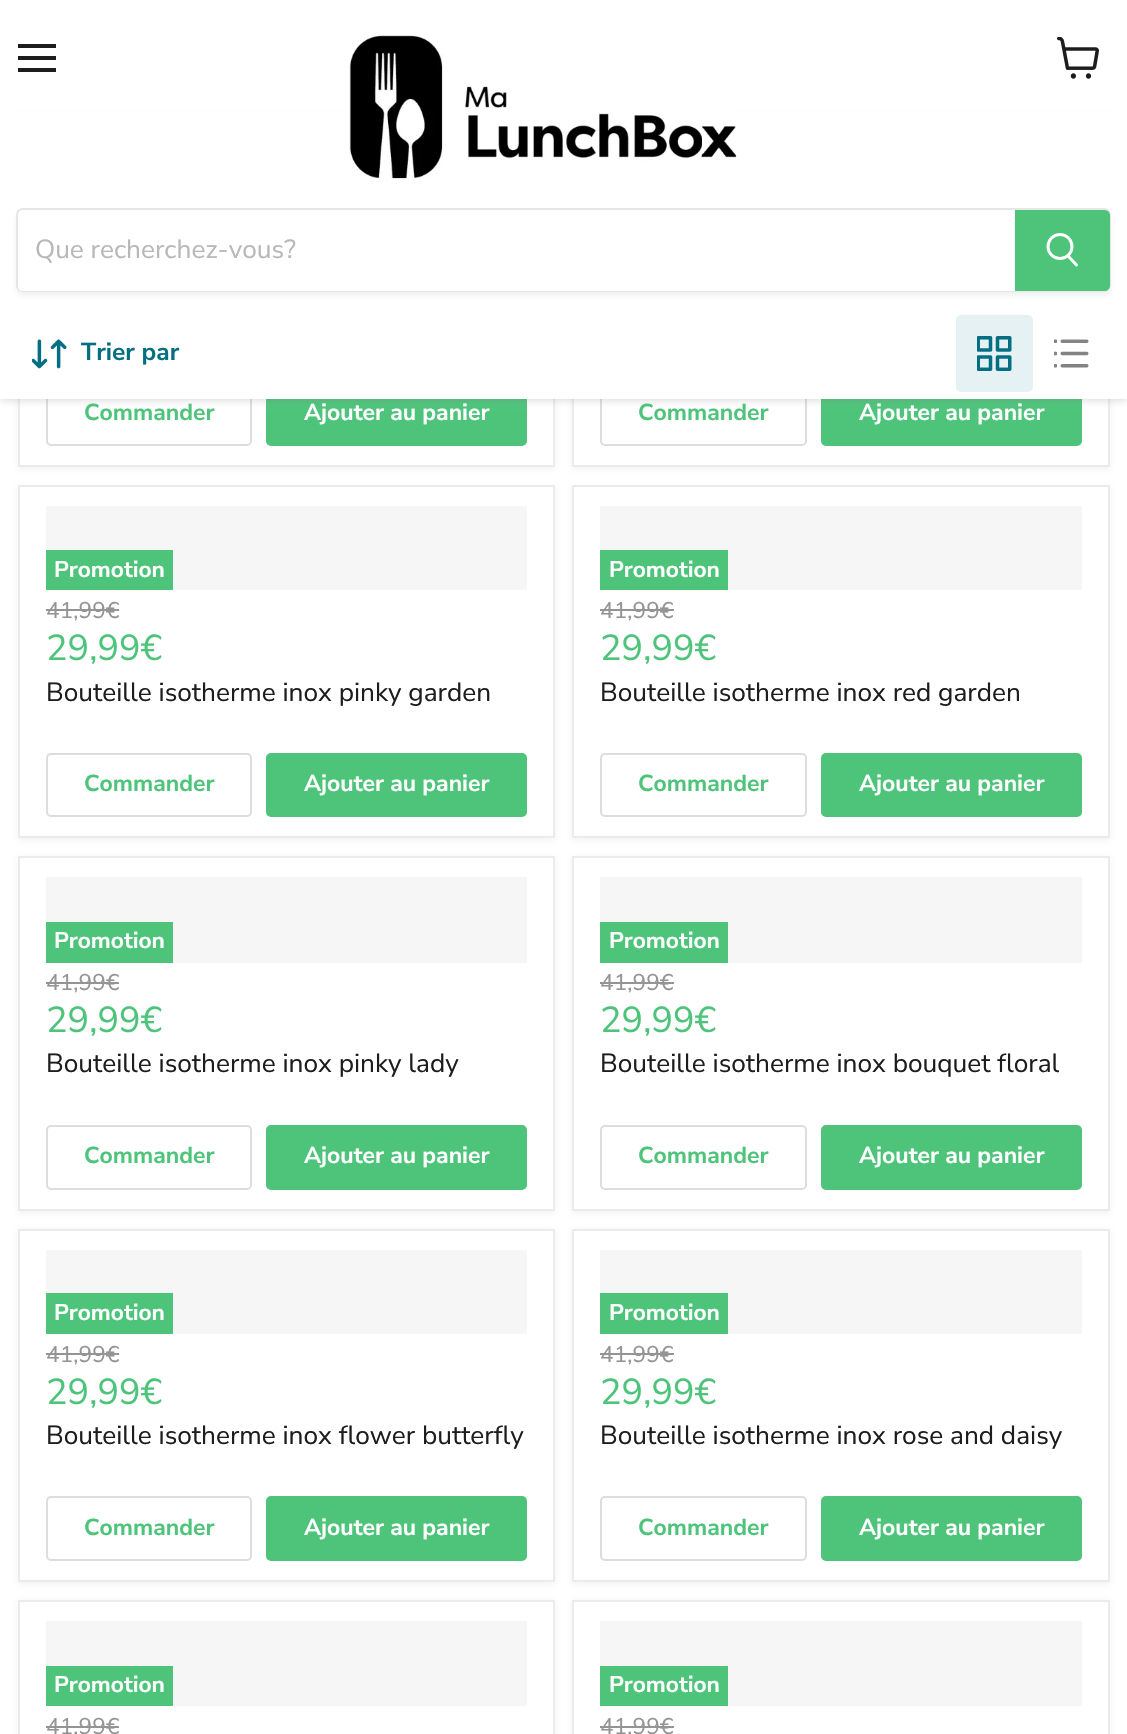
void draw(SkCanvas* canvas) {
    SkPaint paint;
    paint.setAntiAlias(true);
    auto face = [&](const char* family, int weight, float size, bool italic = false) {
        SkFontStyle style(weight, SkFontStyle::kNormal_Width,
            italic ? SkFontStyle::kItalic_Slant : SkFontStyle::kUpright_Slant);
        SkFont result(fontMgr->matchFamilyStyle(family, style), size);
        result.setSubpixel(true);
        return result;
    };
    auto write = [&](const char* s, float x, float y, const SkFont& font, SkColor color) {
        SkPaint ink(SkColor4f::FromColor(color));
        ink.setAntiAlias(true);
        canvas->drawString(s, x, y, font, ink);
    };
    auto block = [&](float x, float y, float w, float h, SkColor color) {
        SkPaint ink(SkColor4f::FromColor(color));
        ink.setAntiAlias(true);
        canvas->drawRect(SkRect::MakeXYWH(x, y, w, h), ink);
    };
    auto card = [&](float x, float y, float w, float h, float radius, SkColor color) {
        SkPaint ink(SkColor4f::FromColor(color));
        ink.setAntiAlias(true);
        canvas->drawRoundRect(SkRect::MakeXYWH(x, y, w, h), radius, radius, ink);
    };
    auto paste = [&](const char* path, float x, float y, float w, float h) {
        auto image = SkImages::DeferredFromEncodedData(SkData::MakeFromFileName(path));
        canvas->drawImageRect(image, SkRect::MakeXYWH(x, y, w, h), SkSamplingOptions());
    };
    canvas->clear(SK_ColorWHITE);
    block(18, 44, 38, 4, SkColorSetRGB(29, 29, 29));
    block(18, 56, 38, 4, SkColorSetRGB(29, 29, 29));
    block(18, 68, 38, 4, SkColorSetRGB(29, 29, 29));
    paste("pic1.png", 1057, 37, 42, 42);
    paint.setColor(SkColorSetARGB(28, 128, 128, 128));
    paint.setMaskFilter(SkMaskFilter::MakeBlur(kNormal_SkBlurStyle, 3.5f));
    canvas->drawRect(SkRect::MakeXYWH(18, 114, 537, 355), paint);
    paint.setMaskFilter(nullptr);
    block(20, 399, 533, 66, SK_ColorWHITE);
    paint.setStyle(SkPaint::kStroke_Style);
    paint.setStrokeWidth(2);
    paint.setColor(SkColorSetRGB(235, 235, 235));
    canvas->drawRect(SkRect::MakeXYWH(19, 113, 535, 353), paint);
    paint.setColor(SkColorSetRGB(221, 221, 221));
    canvas->drawRoundRect(SkRect::MakeXYWH(47, 383, 204, 62), 4, 4, paint);
    paint.setStyle(SkPaint::kFill_Style);
    paint.setColor(SkColorSetRGB(78, 196, 123));
    canvas->drawRoundRect(SkRect::MakeXYWH(267, 383, 259, 62), 4, 4, paint);
    paint.setStyle(SkPaint::kStroke_Style);
    canvas->drawRoundRect(SkRect::MakeXYWH(267, 383, 259, 62), 4, 4, paint);
    paint.setStyle(SkPaint::kFill_Style);
    paint.setColor(SkColorSetARGB(28, 128, 128, 128));
    paint.setMaskFilter(SkMaskFilter::MakeBlur(kNormal_SkBlurStyle, 3.5f));
    canvas->drawRect(SkRect::MakeXYWH(572, 114, 538, 355), paint);
    paint.setMaskFilter(nullptr);
    block(574, 399, 534, 66, SK_ColorWHITE);
    paint.setStyle(SkPaint::kStroke_Style);
    paint.setColor(SkColorSetRGB(235, 235, 235));
    canvas->drawRect(SkRect::MakeXYWH(573, 113, 536, 353), paint);
    paint.setColor(SkColorSetRGB(221, 221, 221));
    canvas->drawRoundRect(SkRect::MakeXYWH(601, 383, 205, 62), 4, 4, paint);
    paint.setStyle(SkPaint::kFill_Style);
    paint.setColor(SkColorSetRGB(78, 196, 123));
    canvas->drawRoundRect(SkRect::MakeXYWH(822, 383, 259, 62), 4, 4, paint);
    paint.setStyle(SkPaint::kStroke_Style);
    canvas->drawRoundRect(SkRect::MakeXYWH(822, 383, 259, 62), 4, 4, paint);
    paint.setStyle(SkPaint::kFill_Style);
    paint.setColor(SkColorSetARGB(64, 128, 128, 128));
    paint.setMaskFilter(SkMaskFilter::MakeBlur(kNormal_SkBlurStyle, 3.5f));
    canvas->drawRect(SkRect::MakeXYWH(0, 310, 1127, 91), paint);
    paint.setMaskFilter(nullptr);
    block(0, 111, 1127, 288, SK_ColorWHITE);
    paste("pic2.png", 349, 35, 388, 144);
    paint.setColor(SkColorSetARGB(28, 128, 128, 128));
    paint.setMaskFilter(SkMaskFilter::MakeBlur(kNormal_SkBlurStyle, 2.5f));
    canvas->drawRoundRect(SkRect::MakeXYWH(16, 212, 1095, 84), 7, 7, paint);
    paint.setMaskFilter(nullptr);
    paint.setStyle(SkPaint::kStroke_Style);
    paint.setColor(SkColorSetRGB(230, 230, 230));
    canvas->drawRoundRect(SkRect::MakeXYWH(17, 209, 1093, 82), 6, 6, paint);
    paint.setStyle(SkPaint::kFill_Style);
    paint.setColor(SK_ColorWHITE);
    canvas->drawPath(SkPathBuilder().moveTo(23, 210).lineTo(1015, 210).lineTo(1015, 291).lineTo(23, 291).cubicTo(20, 291, 18, 289, 18, 286).lineTo(18, 215).cubicTo(18, 212, 20, 210, 23, 210).close().detach(), paint);
    auto kFont1 = face("Nunito Sans", 400, 26.25f);
    write("Que recherchez-vous?", 35, 258, kFont1, SkColorSetRGB(184, 184, 184));
    paint.setColor(SkColorSetRGB(78, 196, 123));
    canvas->drawPath(SkPathBuilder().moveTo(1016, 211).lineTo(1105, 211).cubicTo(1107, 211, 1109, 213, 1109, 215).lineTo(1109, 286).cubicTo(1109, 288, 1107, 290, 1105, 290).lineTo(1016, 290).close().detach(), paint);
    paint.setStyle(SkPaint::kStroke_Style);
    canvas->drawPath(SkPathBuilder().moveTo(1016, 211).lineTo(1105, 211).cubicTo(1107, 211, 1109, 213, 1109, 215).lineTo(1109, 286).cubicTo(1109, 288, 1107, 290, 1105, 290).lineTo(1016, 290).close().detach(), paint);
    paint.setStrokeWidth(3);
    paint.setStrokeCap(SkPaint::kRound_Cap);
    paint.setColor(SK_ColorWHITE);
    canvas->drawPath(SkPathBuilder().moveTo(1076.5f, 265).lineTo(1068.5f, 256.5f).detach(), paint);
    paint.setStrokeCap(SkPaint::kButt_Cap);
    canvas->drawCircle(1060, 246.5f, 12, paint);
    paste("pic3.png", 32, 339, 35, 30);
    auto kFont2 = face("Nunito Sans", 700, 24.5f);
    write("Trier par", 81, 360, kFont2, SkColorSetRGB(4, 110, 130));
    card(956, 315, 77, 77, 5, SkColorSetRGB(230, 241, 243));
    paste("pic4.png", 977, 336, 35, 35);
    paste("pic5.png", 1054, 339, 35, 29);
    auto kFont3 = face("Nunito Sans", 700, 23);
    write("Commander", 84, 420, kFont3, SkColorSetRGB(78, 196, 123));
    write("Ajouter au panier", 304, 420, kFont3, SK_ColorWHITE);
    write("Commander", 638, 420, kFont3, SkColorSetRGB(78, 196, 123));
    write("Ajouter au panier", 859, 420, kFont3, SK_ColorWHITE);
    paint.setStyle(SkPaint::kFill_Style);
    paint.setColor(SkColorSetARGB(28, 128, 128, 128));
    paint.setMaskFilter(SkMaskFilter::MakeBlur(kNormal_SkBlurStyle, 3.5f));
    canvas->drawRect(SkRect::MakeXYWH(18, 487, 537, 353), paint);
    paint.setMaskFilter(nullptr);
    paint.setColor(SK_ColorWHITE);
    canvas->drawRect(SkRect::MakeXYWH(19, 486, 535, 351), paint);
    paint.setStyle(SkPaint::kStroke_Style);
    paint.setStrokeWidth(2);
    paint.setColor(SkColorSetRGB(235, 235, 235));
    canvas->drawRect(SkRect::MakeXYWH(19, 486, 535, 351), paint);
    block(46, 506, 481, 84, SkColorSetRGB(246, 246, 246));
    block(46, 550, 127, 40, SkColorSetRGB(78, 196, 123));
    auto kFont4 = face("Nunito Sans", 700, 22.75f);
    write("Promotion", 54, 577, kFont4, SK_ColorWHITE);
    auto kFont5 = face("Nunito Sans", 400, 22.75f);
    write("41,99€", 46, 618, kFont5, SkColorSetRGB(148, 148, 148));
    block(46, 609, 73, 2, SkColorSetRGB(148, 148, 148));
    auto kFont6 = face("Nunito Sans", 400, 36);
    write("29,99€", 46, 660, kFont6, SkColorSetRGB(78, 196, 123));
    write("Bouteille isotherme inox pinky garden", 46, 701, kFont1, SkColorSetRGB(29, 29, 29));
    paint.setColor(SkColorSetRGB(221, 221, 221));
    canvas->drawRoundRect(SkRect::MakeXYWH(47, 754, 204, 62), 4, 4, paint);
    write("Commander", 84, 791, kFont3, SkColorSetRGB(78, 196, 123));
    paint.setStyle(SkPaint::kFill_Style);
    paint.setColor(SkColorSetRGB(78, 196, 123));
    canvas->drawRoundRect(SkRect::MakeXYWH(267, 754, 259, 62), 4, 4, paint);
    paint.setStyle(SkPaint::kStroke_Style);
    canvas->drawRoundRect(SkRect::MakeXYWH(267, 754, 259, 62), 4, 4, paint);
    write("Ajouter au panier", 304, 791, kFont3, SK_ColorWHITE);
    paint.setStyle(SkPaint::kFill_Style);
    paint.setColor(SkColorSetARGB(28, 128, 128, 128));
    paint.setMaskFilter(SkMaskFilter::MakeBlur(kNormal_SkBlurStyle, 3.5f));
    canvas->drawRect(SkRect::MakeXYWH(572, 487, 538, 353), paint);
    paint.setMaskFilter(nullptr);
    paint.setColor(SK_ColorWHITE);
    canvas->drawRect(SkRect::MakeXYWH(573, 486, 536, 351), paint);
    paint.setStyle(SkPaint::kStroke_Style);
    paint.setColor(SkColorSetRGB(235, 235, 235));
    canvas->drawRect(SkRect::MakeXYWH(573, 486, 536, 351), paint);
    block(600, 506, 482, 84, SkColorSetRGB(246, 246, 246));
    block(600, 550, 128, 40, SkColorSetRGB(78, 196, 123));
    write("Promotion", 609, 577, kFont4, SK_ColorWHITE);
    write("41,99€", 600, 618, kFont5, SkColorSetRGB(148, 148, 148));
    block(600, 609, 74, 2, SkColorSetRGB(148, 148, 148));
    write("29,99€", 600, 660, kFont6, SkColorSetRGB(78, 196, 123));
    write("Bouteille isotherme inox red garden", 600, 701, kFont1, SkColorSetRGB(29, 29, 29));
    paint.setColor(SkColorSetRGB(221, 221, 221));
    canvas->drawRoundRect(SkRect::MakeXYWH(601, 754, 205, 62), 4, 4, paint);
    write("Commander", 638, 791, kFont3, SkColorSetRGB(78, 196, 123));
    paint.setStyle(SkPaint::kFill_Style);
    paint.setColor(SkColorSetRGB(78, 196, 123));
    canvas->drawRoundRect(SkRect::MakeXYWH(822, 754, 259, 62), 4, 4, paint);
    paint.setStyle(SkPaint::kStroke_Style);
    canvas->drawRoundRect(SkRect::MakeXYWH(822, 754, 259, 62), 4, 4, paint);
    write("Ajouter au panier", 859, 791, kFont3, SK_ColorWHITE);
    paint.setStyle(SkPaint::kFill_Style);
    paint.setColor(SkColorSetARGB(28, 128, 128, 128));
    paint.setMaskFilter(SkMaskFilter::MakeBlur(kNormal_SkBlurStyle, 3.5f));
    canvas->drawRect(SkRect::MakeXYWH(18, 858, 537, 355), paint);
    paint.setMaskFilter(nullptr);
    paint.setColor(SK_ColorWHITE);
    canvas->drawRect(SkRect::MakeXYWH(19, 857, 535, 353), paint);
    paint.setStyle(SkPaint::kStroke_Style);
    paint.setColor(SkColorSetRGB(235, 235, 235));
    canvas->drawRect(SkRect::MakeXYWH(19, 857, 535, 353), paint);
    block(46, 877, 481, 86, SkColorSetRGB(246, 246, 246));
    block(46, 922, 127, 41, SkColorSetRGB(78, 196, 123));
    write("Promotion", 54, 948, kFont4, SK_ColorWHITE);
    write("41,99€", 46, 990, kFont5, SkColorSetRGB(148, 148, 148));
    block(46, 982, 73, 2, SkColorSetRGB(148, 148, 148));
    write("29,99€", 46, 1032, kFont6, SkColorSetRGB(78, 196, 123));
    write("Bouteille isotherme inox pinky lady", 46, 1072, kFont1, SkColorSetRGB(29, 29, 29));
    paint.setColor(SkColorSetRGB(221, 221, 221));
    canvas->drawRoundRect(SkRect::MakeXYWH(47, 1126, 204, 63), 4, 4, paint);
    write("Commander", 84, 1163, kFont3, SkColorSetRGB(78, 196, 123));
    paint.setStyle(SkPaint::kFill_Style);
    paint.setColor(SkColorSetRGB(78, 196, 123));
    canvas->drawRoundRect(SkRect::MakeXYWH(267, 1126, 259, 63), 4, 4, paint);
    paint.setStyle(SkPaint::kStroke_Style);
    canvas->drawRoundRect(SkRect::MakeXYWH(267, 1126, 259, 63), 4, 4, paint);
    write("Ajouter au panier", 304, 1163, kFont3, SK_ColorWHITE);
    paint.setStyle(SkPaint::kFill_Style);
    paint.setColor(SkColorSetARGB(28, 128, 128, 128));
    paint.setMaskFilter(SkMaskFilter::MakeBlur(kNormal_SkBlurStyle, 3.5f));
    canvas->drawRect(SkRect::MakeXYWH(572, 858, 538, 355), paint);
    paint.setMaskFilter(nullptr);
    paint.setColor(SK_ColorWHITE);
    canvas->drawRect(SkRect::MakeXYWH(573, 857, 536, 353), paint);
    paint.setStyle(SkPaint::kStroke_Style);
    paint.setColor(SkColorSetRGB(235, 235, 235));
    canvas->drawRect(SkRect::MakeXYWH(573, 857, 536, 353), paint);
    block(600, 877, 482, 86, SkColorSetRGB(246, 246, 246));
    block(600, 922, 128, 41, SkColorSetRGB(78, 196, 123));
    write("Promotion", 609, 948, kFont4, SK_ColorWHITE);
    write("41,99€", 600, 990, kFont5, SkColorSetRGB(148, 148, 148));
    block(600, 982, 74, 2, SkColorSetRGB(148, 148, 148));
    write("29,99€", 600, 1032, kFont6, SkColorSetRGB(78, 196, 123));
    write("Bouteille isotherme inox bouquet floral", 600, 1072, kFont1, SkColorSetRGB(29, 29, 29));
    paint.setColor(SkColorSetRGB(221, 221, 221));
    canvas->drawRoundRect(SkRect::MakeXYWH(601, 1126, 205, 63), 4, 4, paint);
    write("Commander", 638, 1163, kFont3, SkColorSetRGB(78, 196, 123));
    paint.setStyle(SkPaint::kFill_Style);
    paint.setColor(SkColorSetRGB(78, 196, 123));
    canvas->drawRoundRect(SkRect::MakeXYWH(822, 1126, 259, 63), 4, 4, paint);
    paint.setStyle(SkPaint::kStroke_Style);
    canvas->drawRoundRect(SkRect::MakeXYWH(822, 1126, 259, 63), 4, 4, paint);
    write("Ajouter au panier", 859, 1163, kFont3, SK_ColorWHITE);
    paint.setStyle(SkPaint::kFill_Style);
    paint.setColor(SkColorSetARGB(28, 128, 128, 128));
    paint.setMaskFilter(SkMaskFilter::MakeBlur(kNormal_SkBlurStyle, 3.5f));
    canvas->drawRect(SkRect::MakeXYWH(18, 1230, 537, 354), paint);
    paint.setMaskFilter(nullptr);
    paint.setColor(SK_ColorWHITE);
    canvas->drawRect(SkRect::MakeXYWH(19, 1230, 535, 351), paint);
    paint.setStyle(SkPaint::kStroke_Style);
    paint.setColor(SkColorSetRGB(235, 235, 235));
    canvas->drawRect(SkRect::MakeXYWH(19, 1230, 535, 351), paint);
    block(46, 1250, 481, 84, SkColorSetRGB(246, 246, 246));
    block(46, 1293, 127, 41, SkColorSetRGB(78, 196, 123));
    write("Promotion", 54, 1320, kFont4, SK_ColorWHITE);
    write("41,99€", 46, 1362, kFont5, SkColorSetRGB(148, 148, 148));
    block(46, 1353, 73, 2, SkColorSetRGB(148, 148, 148));
    write("29,99€", 46, 1404, kFont6, SkColorSetRGB(78, 196, 123));
    write("Bouteille isotherme inox flower butterfly", 46, 1444, kFont1, SkColorSetRGB(29, 29, 29));
    paint.setColor(SkColorSetRGB(221, 221, 221));
    canvas->drawRoundRect(SkRect::MakeXYWH(47, 1497, 204, 63), 4, 4, paint);
    write("Commander", 84, 1535, kFont3, SkColorSetRGB(78, 196, 123));
    paint.setStyle(SkPaint::kFill_Style);
    paint.setColor(SkColorSetRGB(78, 196, 123));
    canvas->drawRoundRect(SkRect::MakeXYWH(267, 1497, 259, 63), 4, 4, paint);
    paint.setStyle(SkPaint::kStroke_Style);
    canvas->drawRoundRect(SkRect::MakeXYWH(267, 1497, 259, 63), 4, 4, paint);
    write("Ajouter au panier", 304, 1535, kFont3, SK_ColorWHITE);
    paint.setStyle(SkPaint::kFill_Style);
    paint.setColor(SkColorSetARGB(28, 128, 128, 128));
    paint.setMaskFilter(SkMaskFilter::MakeBlur(kNormal_SkBlurStyle, 3.5f));
    canvas->drawRect(SkRect::MakeXYWH(572, 1230, 538, 354), paint);
    paint.setMaskFilter(nullptr);
    paint.setColor(SK_ColorWHITE);
    canvas->drawRect(SkRect::MakeXYWH(573, 1230, 536, 351), paint);
    paint.setStyle(SkPaint::kStroke_Style);
    paint.setColor(SkColorSetRGB(235, 235, 235));
    canvas->drawRect(SkRect::MakeXYWH(573, 1230, 536, 351), paint);
    block(600, 1250, 482, 84, SkColorSetRGB(246, 246, 246));
    block(600, 1293, 128, 41, SkColorSetRGB(78, 196, 123));
    write("Promotion", 609, 1320, kFont4, SK_ColorWHITE);
    write("41,99€", 600, 1362, kFont5, SkColorSetRGB(148, 148, 148));
    block(600, 1353, 74, 2, SkColorSetRGB(148, 148, 148));
    write("29,99€", 600, 1404, kFont6, SkColorSetRGB(78, 196, 123));
    write("Bouteille isotherme inox rose and daisy", 600, 1444, kFont1, SkColorSetRGB(29, 29, 29));
    paint.setColor(SkColorSetRGB(221, 221, 221));
    canvas->drawRoundRect(SkRect::MakeXYWH(601, 1497, 205, 63), 4, 4, paint);
    write("Commander", 638, 1535, kFont3, SkColorSetRGB(78, 196, 123));
    paint.setStyle(SkPaint::kFill_Style);
    paint.setColor(SkColorSetRGB(78, 196, 123));
    canvas->drawRoundRect(SkRect::MakeXYWH(822, 1497, 259, 63), 4, 4, paint);
    paint.setStyle(SkPaint::kStroke_Style);
    canvas->drawRoundRect(SkRect::MakeXYWH(822, 1497, 259, 63), 4, 4, paint);
    write("Ajouter au panier", 859, 1535, kFont3, SK_ColorWHITE);
    paint.setStyle(SkPaint::kFill_Style);
    paint.setColor(SkColorSetARGB(28, 128, 128, 128));
    paint.setMaskFilter(SkMaskFilter::MakeBlur(kNormal_SkBlurStyle, 3.5f));
    canvas->drawRect(SkRect::MakeXYWH(18, 1601, 537, 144), paint);
    paint.setMaskFilter(nullptr);
    paint.setColor(SK_ColorWHITE);
    canvas->drawRect(SkRect::MakeXYWH(19, 1601, 535, 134), paint);
    paint.setStyle(SkPaint::kStroke_Style);
    paint.setColor(SkColorSetRGB(235, 235, 235));
    canvas->drawRect(SkRect::MakeXYWH(19, 1601, 535, 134), paint);
    block(46, 1621, 481, 85, SkColorSetRGB(246, 246, 246));
    block(46, 1666, 127, 40, SkColorSetRGB(78, 196, 123));
    write("Promotion", 54, 1692, kFont4, SK_ColorWHITE);
    write("41,99€", 46, 1734, kFont5, SkColorSetRGB(148, 148, 148));
    block(46, 1726, 73, 2, SkColorSetRGB(148, 148, 148));
    paint.setStyle(SkPaint::kFill_Style);
    paint.setColor(SkColorSetARGB(28, 128, 128, 128));
    paint.setMaskFilter(SkMaskFilter::MakeBlur(kNormal_SkBlurStyle, 3.5f));
    canvas->drawRect(SkRect::MakeXYWH(572, 1601, 538, 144), paint);
    paint.setMaskFilter(nullptr);
    paint.setColor(SK_ColorWHITE);
    canvas->drawRect(SkRect::MakeXYWH(573, 1601, 536, 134), paint);
    paint.setStyle(SkPaint::kStroke_Style);
    paint.setColor(SkColorSetRGB(235, 235, 235));
    canvas->drawRect(SkRect::MakeXYWH(573, 1601, 536, 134), paint);
    block(600, 1621, 482, 85, SkColorSetRGB(246, 246, 246));
    block(600, 1666, 128, 40, SkColorSetRGB(78, 196, 123));
    write("Promotion", 609, 1692, kFont4, SK_ColorWHITE);
    write("41,99€", 600, 1734, kFont5, SkColorSetRGB(148, 148, 148));
    block(600, 1726, 74, 2, SkColorSetRGB(148, 148, 148));
}
